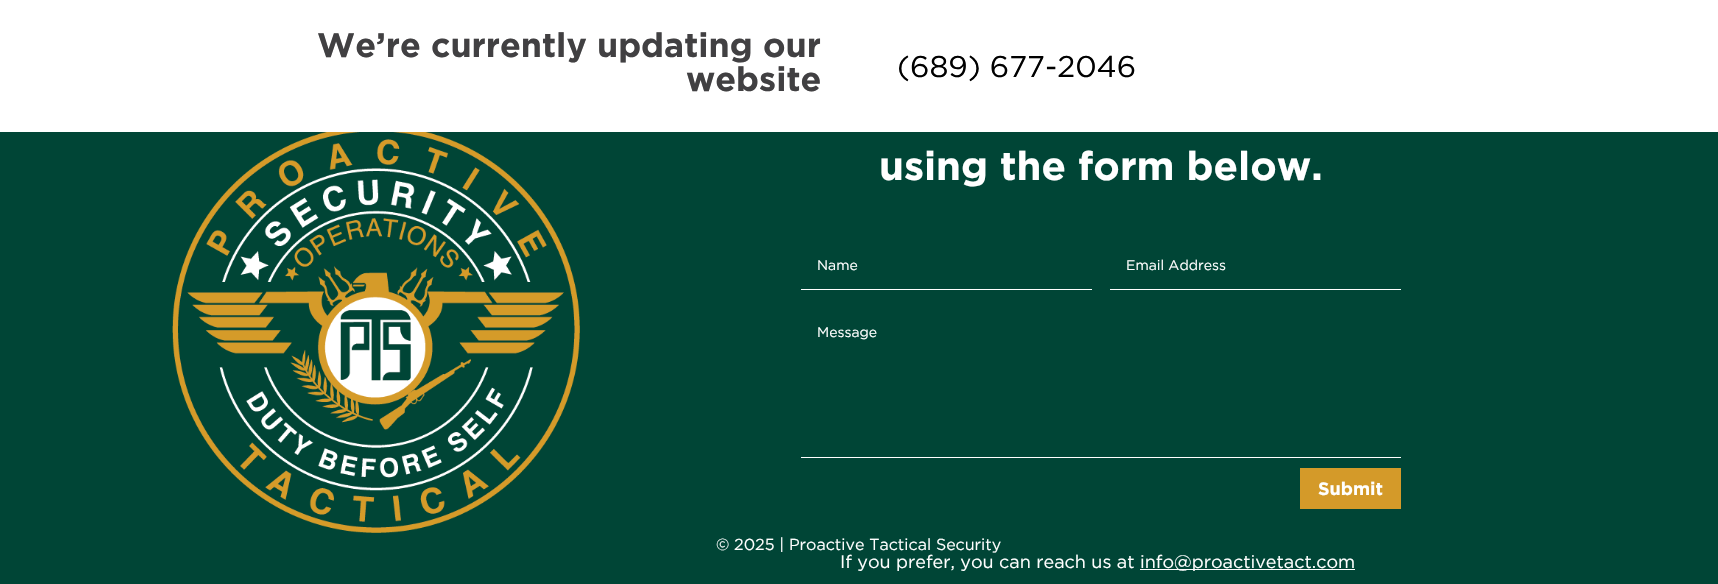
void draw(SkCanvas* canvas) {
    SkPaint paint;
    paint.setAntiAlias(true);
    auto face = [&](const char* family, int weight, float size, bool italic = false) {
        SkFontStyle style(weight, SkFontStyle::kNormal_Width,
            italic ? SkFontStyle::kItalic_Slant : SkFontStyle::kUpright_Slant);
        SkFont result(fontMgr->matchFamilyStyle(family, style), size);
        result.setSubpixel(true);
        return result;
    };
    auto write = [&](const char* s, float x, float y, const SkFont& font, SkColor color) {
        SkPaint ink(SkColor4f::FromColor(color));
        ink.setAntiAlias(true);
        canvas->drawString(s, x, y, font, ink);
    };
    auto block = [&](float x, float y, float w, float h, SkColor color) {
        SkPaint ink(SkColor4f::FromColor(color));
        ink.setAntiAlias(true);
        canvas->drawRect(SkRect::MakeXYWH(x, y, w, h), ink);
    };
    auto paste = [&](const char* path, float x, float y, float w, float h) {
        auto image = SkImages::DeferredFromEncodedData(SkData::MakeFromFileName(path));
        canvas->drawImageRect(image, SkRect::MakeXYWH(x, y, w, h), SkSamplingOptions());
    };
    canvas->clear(SkColorSetRGB(0, 69, 54));
    block(0, 0, 1718, 132, SK_ColorWHITE);
    auto kFont1 = face("Gotham", 700, 34);
    write("We’re currently updating our", 317, 57, kFont1, SkColorSetRGB(65, 64, 66));
    write("website", 686, 91, kFont1, SkColorSetRGB(65, 64, 66));
    auto kFont2 = face("Gotham", 400, 30);
    write("(689) 677-2046", 897, 77, kFont2, SK_ColorBLACK);
    paste("pic1.png", 172, 132, 408, 401);
    auto kFont3 = face("Gotham", 700, 40);
    write("using the form below.", 879, 180, kFont3, SK_ColorWHITE);
    block(801, 289, 291, 1, SK_ColorWHITE);
    auto kFont4 = face("Gotham", 400, 14);
    write("Name", 817, 270, kFont4, SK_ColorWHITE);
    block(1110, 289, 291, 1, SK_ColorWHITE);
    write("Email Address", 1126, 270, kFont4, SK_ColorWHITE);
    block(801, 457, 600, 1, SK_ColorWHITE);
    write("Message", 817, 337, kFont4, SK_ColorWHITE);
    block(1300, 468, 101, 41, SkColorSetRGB(212, 154, 41));
    auto kFont5 = face("Gotham", 700, 18);
    write("Submit", 1318, 495, kFont5, SK_ColorWHITE);
    auto kFont6 = face("Gotham", 400, 18);
    write("If you prefer, you can reach us at", 840, 568, kFont6, SK_ColorWHITE);
    block(1140, 569, 215, 1, SK_ColorWHITE);
    write("info@proactivetact.com", 1140, 568, kFont6, SK_ColorWHITE);
    auto kFont7 = face("Gotham", 400, 16);
    write("© 2025 | Proactive Tactical Security", 716, 550, kFont7, SK_ColorWHITE);
}
